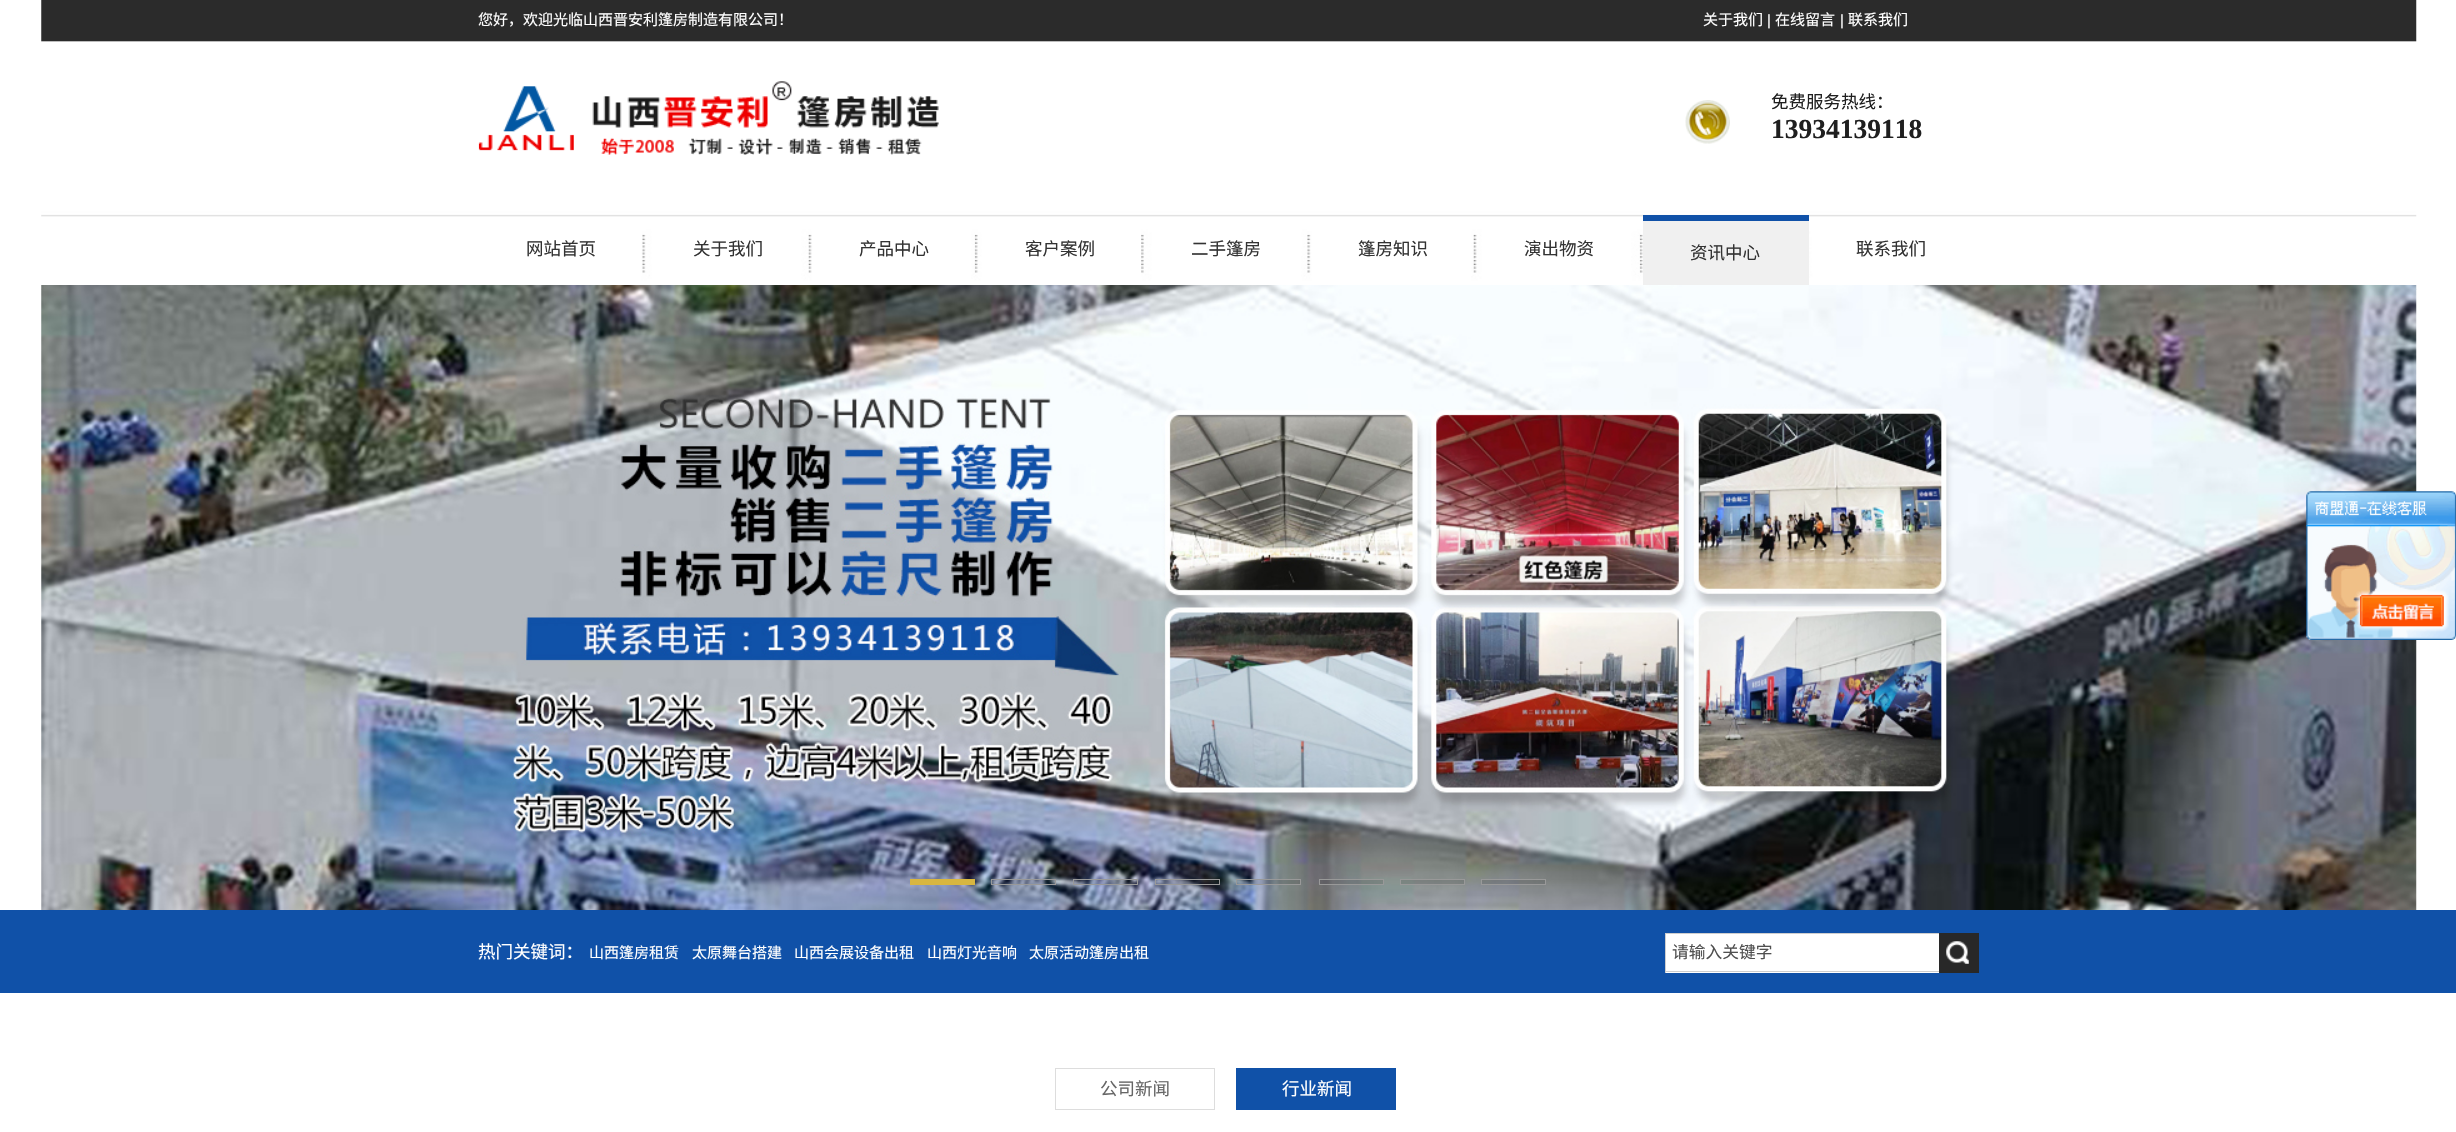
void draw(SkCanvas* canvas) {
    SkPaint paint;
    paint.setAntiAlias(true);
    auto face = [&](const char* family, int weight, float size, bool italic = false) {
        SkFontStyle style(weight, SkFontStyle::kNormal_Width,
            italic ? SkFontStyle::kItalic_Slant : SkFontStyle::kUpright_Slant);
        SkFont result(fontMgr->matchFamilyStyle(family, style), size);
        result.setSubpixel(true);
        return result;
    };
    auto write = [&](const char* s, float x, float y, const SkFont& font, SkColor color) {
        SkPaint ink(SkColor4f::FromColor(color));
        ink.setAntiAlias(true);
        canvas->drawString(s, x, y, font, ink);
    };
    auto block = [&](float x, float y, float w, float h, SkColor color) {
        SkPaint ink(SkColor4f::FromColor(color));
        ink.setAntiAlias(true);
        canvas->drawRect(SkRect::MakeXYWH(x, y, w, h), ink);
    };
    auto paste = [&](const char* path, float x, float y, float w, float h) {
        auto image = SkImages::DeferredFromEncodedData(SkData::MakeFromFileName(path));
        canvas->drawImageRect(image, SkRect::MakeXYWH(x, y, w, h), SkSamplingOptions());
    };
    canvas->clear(SK_ColorWHITE);
    paste("pic1.png", 41, 0, 2376, 290);
    auto kFont1 = face("Noto Sans CJK SC", 400, 15);
    write("您好，欢迎光临山西晋安利篷房制造有限公司！", 478, 25, kFont1, SK_ColorWHITE);
    write("关于我们", 1703, 25, kFont1, SK_ColorWHITE);
    auto kFont2 = face("Liberation Sans", 400, 15);
    write("|", 1767, 25, kFont2, SK_ColorWHITE);
    write("在线留言", 1775, 25, kFont1, SK_ColorWHITE);
    write("|", 1840, 25, kFont2, SK_ColorWHITE);
    write("联系我们", 1848, 25, kFont1, SK_ColorWHITE);
    paste("pic2.png", 478, 81, 461, 74);
    paste("pic3.png", 1685, 100, 45, 44);
    auto kFont3 = face("Noto Sans CJK SC", 400, 17.5f);
    write("免费服务热线：", 1771, 108, kFont3, SkColorSetRGB(31, 31, 31));
    auto kFont4 = face("Liberation Serif", 700, 27.5f);
    write("13934139118", 1771, 138, kFont4, SkColorSetRGB(31, 31, 31));
    write("网站首页", 526, 255, kFont3, SkColorSetRGB(51, 51, 51));
    write("关于我们", 693, 255, kFont3, SkColorSetRGB(51, 51, 51));
    write("产品中心", 859, 255, kFont3, SkColorSetRGB(51, 51, 51));
    write("客户案例", 1025, 255, kFont3, SkColorSetRGB(51, 51, 51));
    write("二手篷房", 1191, 255, kFont3, SkColorSetRGB(51, 51, 51));
    write("篷房知识", 1358, 255, kFont3, SkColorSetRGB(51, 51, 51));
    write("演出物资", 1524, 255, kFont3, SkColorSetRGB(51, 51, 51));
    block(1643, 221, 166, 64, SkColorSetRGB(240, 240, 240));
    block(1643, 215, 166, 6, SkColorSetRGB(16, 81, 168));
    write("资讯中心", 1690, 259, kFont3, SkColorSetRGB(51, 51, 51));
    write("联系我们", 1856, 255, kFont3, SkColorSetRGB(51, 51, 51));
    paste("pic4.png", 41, 285, 2376, 625);
    block(910, 879, 65, 6, SkColorSetRGB(216, 182, 64));
    paint.setColor(SkColorSetARGB(26, 0, 0, 0));
    canvas->drawRect(SkRect::MakeXYWH(991.5f, 879.5f, 64, 5), paint);
    paint.setStyle(SkPaint::kStroke_Style);
    paint.setStrokeWidth(1);
    paint.setColor(SkColorSetRGB(153, 153, 153));
    canvas->drawRect(SkRect::MakeXYWH(991.5f, 879.5f, 64, 5), paint);
    paint.setStyle(SkPaint::kFill_Style);
    paint.setColor(SkColorSetARGB(26, 0, 0, 0));
    canvas->drawRect(SkRect::MakeXYWH(1073.5f, 879.5f, 64, 5), paint);
    paint.setStyle(SkPaint::kStroke_Style);
    paint.setColor(SkColorSetRGB(153, 153, 153));
    canvas->drawRect(SkRect::MakeXYWH(1073.5f, 879.5f, 64, 5), paint);
    paint.setStyle(SkPaint::kFill_Style);
    paint.setColor(SkColorSetARGB(26, 0, 0, 0));
    canvas->drawRect(SkRect::MakeXYWH(1155.5f, 879.5f, 64, 5), paint);
    paint.setStyle(SkPaint::kStroke_Style);
    paint.setColor(SkColorSetRGB(153, 153, 153));
    canvas->drawRect(SkRect::MakeXYWH(1155.5f, 879.5f, 64, 5), paint);
    paint.setStyle(SkPaint::kFill_Style);
    paint.setColor(SkColorSetARGB(26, 0, 0, 0));
    canvas->drawRect(SkRect::MakeXYWH(1236.5f, 879.5f, 64, 5), paint);
    paint.setStyle(SkPaint::kStroke_Style);
    paint.setColor(SkColorSetRGB(153, 153, 153));
    canvas->drawRect(SkRect::MakeXYWH(1236.5f, 879.5f, 64, 5), paint);
    paint.setStyle(SkPaint::kFill_Style);
    paint.setColor(SkColorSetARGB(26, 0, 0, 0));
    canvas->drawRect(SkRect::MakeXYWH(1319.5f, 879.5f, 64, 5), paint);
    paint.setStyle(SkPaint::kStroke_Style);
    paint.setColor(SkColorSetRGB(153, 153, 153));
    canvas->drawRect(SkRect::MakeXYWH(1319.5f, 879.5f, 64, 5), paint);
    paint.setStyle(SkPaint::kFill_Style);
    paint.setColor(SkColorSetARGB(26, 0, 0, 0));
    canvas->drawRect(SkRect::MakeXYWH(1400.5f, 879.5f, 64, 5), paint);
    paint.setStyle(SkPaint::kStroke_Style);
    paint.setColor(SkColorSetRGB(153, 153, 153));
    canvas->drawRect(SkRect::MakeXYWH(1400.5f, 879.5f, 64, 5), paint);
    paint.setStyle(SkPaint::kFill_Style);
    paint.setColor(SkColorSetARGB(26, 0, 0, 0));
    canvas->drawRect(SkRect::MakeXYWH(1481.5f, 879.5f, 64, 5), paint);
    paint.setStyle(SkPaint::kStroke_Style);
    paint.setColor(SkColorSetRGB(153, 153, 153));
    canvas->drawRect(SkRect::MakeXYWH(1481.5f, 879.5f, 64, 5), paint);
    block(0, 910, 2456, 83, SkColorSetRGB(16, 81, 168));
    write("热门关键词：", 478, 958, kFont3, SK_ColorWHITE);
    write("山西篷房租赁", 589, 958, kFont1, SK_ColorWHITE);
    write("太原舞台搭建", 692, 958, kFont1, SK_ColorWHITE);
    write("山西会展设备出租", 794, 958, kFont1, SK_ColorWHITE);
    write("山西灯光音响", 927, 958, kFont1, SK_ColorWHITE);
    write("太原活动篷房出租", 1029, 958, kFont1, SK_ColorWHITE);
    block(1666, 934, 273, 39, SK_ColorWHITE);
    block(1665, 933, 274, 1, SkColorSetRGB(206, 206, 206));
    block(1665, 971, 274, 1, SkColorSetRGB(206, 206, 206));
    block(1665, 933, 1, 40, SkColorSetRGB(206, 206, 206));
    auto kFont5 = face("Noto Sans CJK SC", 400, 16.75f);
    write("请输入关键字", 1672, 958, kFont5, SkColorSetRGB(80, 80, 80));
    block(1939, 933, 40, 40, SkColorSetRGB(40, 40, 40));
    paste("pic5.png", 1946, 941, 23, 23);
    paint.setColor(SkColorSetRGB(221, 221, 221));
    canvas->drawRect(SkRect::MakeXYWH(1055.5f, 1068.5f, 159, 41), paint);
    write("公司新闻", 1100, 1095, kFont3, SkColorSetRGB(102, 102, 102));
    block(1236, 1068, 160, 42, SkColorSetRGB(16, 81, 168));
    write("行业新闻", 1282, 1095, kFont3, SK_ColorWHITE);
    paste("pic6.png", 2306, 491, 150, 149);
}
